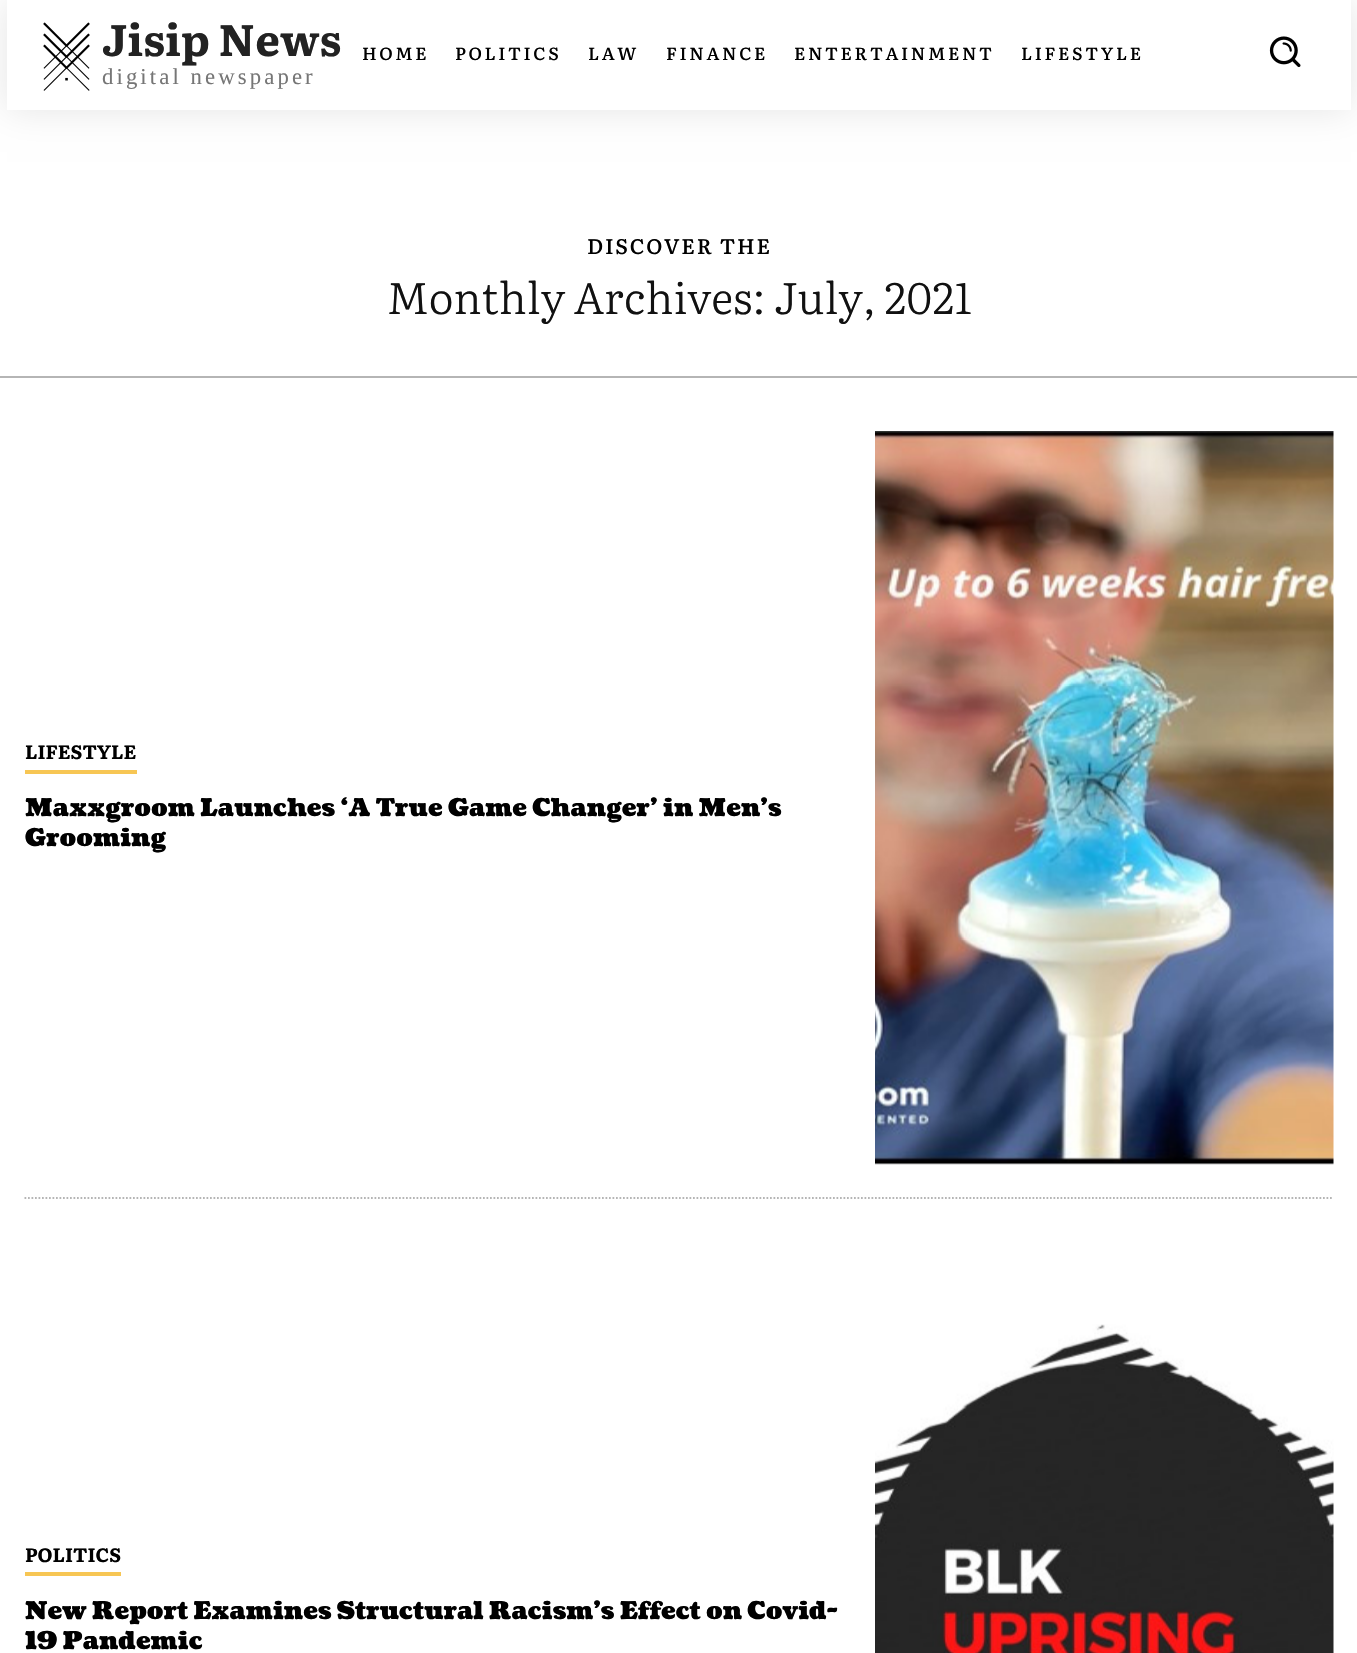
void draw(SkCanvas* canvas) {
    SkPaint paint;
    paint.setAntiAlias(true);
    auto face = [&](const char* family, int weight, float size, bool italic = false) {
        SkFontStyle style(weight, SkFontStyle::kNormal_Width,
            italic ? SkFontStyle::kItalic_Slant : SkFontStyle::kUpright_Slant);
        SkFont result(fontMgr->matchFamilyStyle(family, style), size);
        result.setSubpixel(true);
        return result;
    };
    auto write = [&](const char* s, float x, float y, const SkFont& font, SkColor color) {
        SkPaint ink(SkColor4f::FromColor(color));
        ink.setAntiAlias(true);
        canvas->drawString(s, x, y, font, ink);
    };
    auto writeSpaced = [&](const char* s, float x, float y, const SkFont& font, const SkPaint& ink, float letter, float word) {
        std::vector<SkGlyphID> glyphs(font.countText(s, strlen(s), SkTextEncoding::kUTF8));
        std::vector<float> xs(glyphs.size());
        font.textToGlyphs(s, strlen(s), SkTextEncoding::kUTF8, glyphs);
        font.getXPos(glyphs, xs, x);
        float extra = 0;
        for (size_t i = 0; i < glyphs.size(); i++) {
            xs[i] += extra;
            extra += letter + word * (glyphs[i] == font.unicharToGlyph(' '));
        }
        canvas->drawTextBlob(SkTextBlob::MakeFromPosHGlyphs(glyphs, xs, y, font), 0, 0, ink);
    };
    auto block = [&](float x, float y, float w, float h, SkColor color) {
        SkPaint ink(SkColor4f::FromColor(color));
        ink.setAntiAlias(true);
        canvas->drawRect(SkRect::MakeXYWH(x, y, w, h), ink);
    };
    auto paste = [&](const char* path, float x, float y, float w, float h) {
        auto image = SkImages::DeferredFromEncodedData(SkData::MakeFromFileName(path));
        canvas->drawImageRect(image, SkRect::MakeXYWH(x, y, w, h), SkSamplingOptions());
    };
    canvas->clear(SK_ColorWHITE);
    paste("pic1.png", 43, 22, 47, 69);
    canvas->save();
    canvas->clipPath(SkPathBuilder(SkPathFillType::kEvenOdd).moveTo(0, 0).lineTo(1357, 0).lineTo(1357, 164).lineTo(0, 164).close().moveTo(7, 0).lineTo(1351, 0).lineTo(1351, 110).lineTo(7, 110).close().detach(), true);
    paint.setColor(SkColorSetARGB(26, 0, 0, 0));
    paint.setMaskFilter(SkMaskFilter::MakeBlur(kNormal_SkBlurStyle, 17.5f));
    canvas->drawRect(SkRect::MakeXYWH(7, 0, 1344, 110), paint);
    paint.setMaskFilter(nullptr);
    canvas->restore();
    auto kFont1 = face("Literata", 700, 43.75f);
    write("Jisip News", 102, 56, kFont1, SkColorSetRGB(34, 34, 34));
    auto kFont2 = face("Liberation Serif", 400, 22.75f);
    paint.setColor(SkColorSetRGB(118, 118, 118));
    writeSpaced("digital newspaper", 102, 84, kFont2, paint, 3.1f, 0);
    auto kFont3 = face("Literata", 500, 17.5f);
    paint.setColor(SK_ColorBLACK);
    writeSpaced("HOME", 362, 60, kFont3, paint, 2.6f, 0);
    writeSpaced("POLITICS", 455, 60, kFont3, paint, 2.6f, 0);
    writeSpaced("LAW", 588, 60, kFont3, paint, 2.6f, 0);
    writeSpaced("FINANCE", 666, 60, kFont3, paint, 2.6f, 0);
    writeSpaced("ENTERTAINMENT", 794, 60, kFont3, paint, 2.6f, 0);
    writeSpaced("LIFESTYLE", 1021, 60, kFont3, paint, 2.6f, 0);
    paste("pic2.png", 1269, 36, 32, 32);
    block(0, 376, 1357, 2, SkColorSetRGB(181, 181, 181));
    auto kFont4 = face("Literata", 500, 21);
    writeSpaced("DISCOVER THE", 587, 254, kFont4, paint, 1.75f, 0);
    auto kFont5 = face("Literata", 300, 43.75f);
    write("Monthly Archives: July, 2021", 387, 314, kFont5, SkColorSetRGB(17, 17, 17));
    block(25, 770, 112, 4, SkColorSetRGB(247, 198, 84));
    auto kFont6 = face("Literata", 700, 19.25f);
    write("LIFESTYLE", 25, 759, kFont6, SK_ColorBLACK);
    auto kFont7 = face("Coustard", 900, 24.5f);
    write("Maxxgroom Launches ‘A True Game Changer’ in Men’s", 25, 816, kFont7, SK_ColorBLACK);
    write("Grooming", 25, 846, kFont7, SK_ColorBLACK);
    paste("pic3.png", 875, 431, 459, 734);
    paint.setStyle(SkPaint::kStroke_Style);
    paint.setStrokeWidth(1.8f);
    paint.setColor(SkColorSetRGB(181, 181, 181));
    paint.setPathEffect(SkDashPathEffect::Make({{1.75f, 1.75f}}, 0));
    canvas->drawPath(SkPathBuilder().moveTo(24.5f, 1198).lineTo(1333.5f, 1198).detach(), paint);
    paint.setPathEffect(nullptr);
    block(25, 1572, 96, 4, SkColorSetRGB(247, 198, 84));
    write("POLITICS", 25, 1562, kFont6, SK_ColorBLACK);
    write("New Report Examines Structural Racism’s Effect on Covid-", 25, 1619, kFont7, SK_ColorBLACK);
    write("19 Pandemic", 25, 1649, kFont7, SK_ColorBLACK);
    paste("pic4.png", 875, 1324, 459, 329);
}
